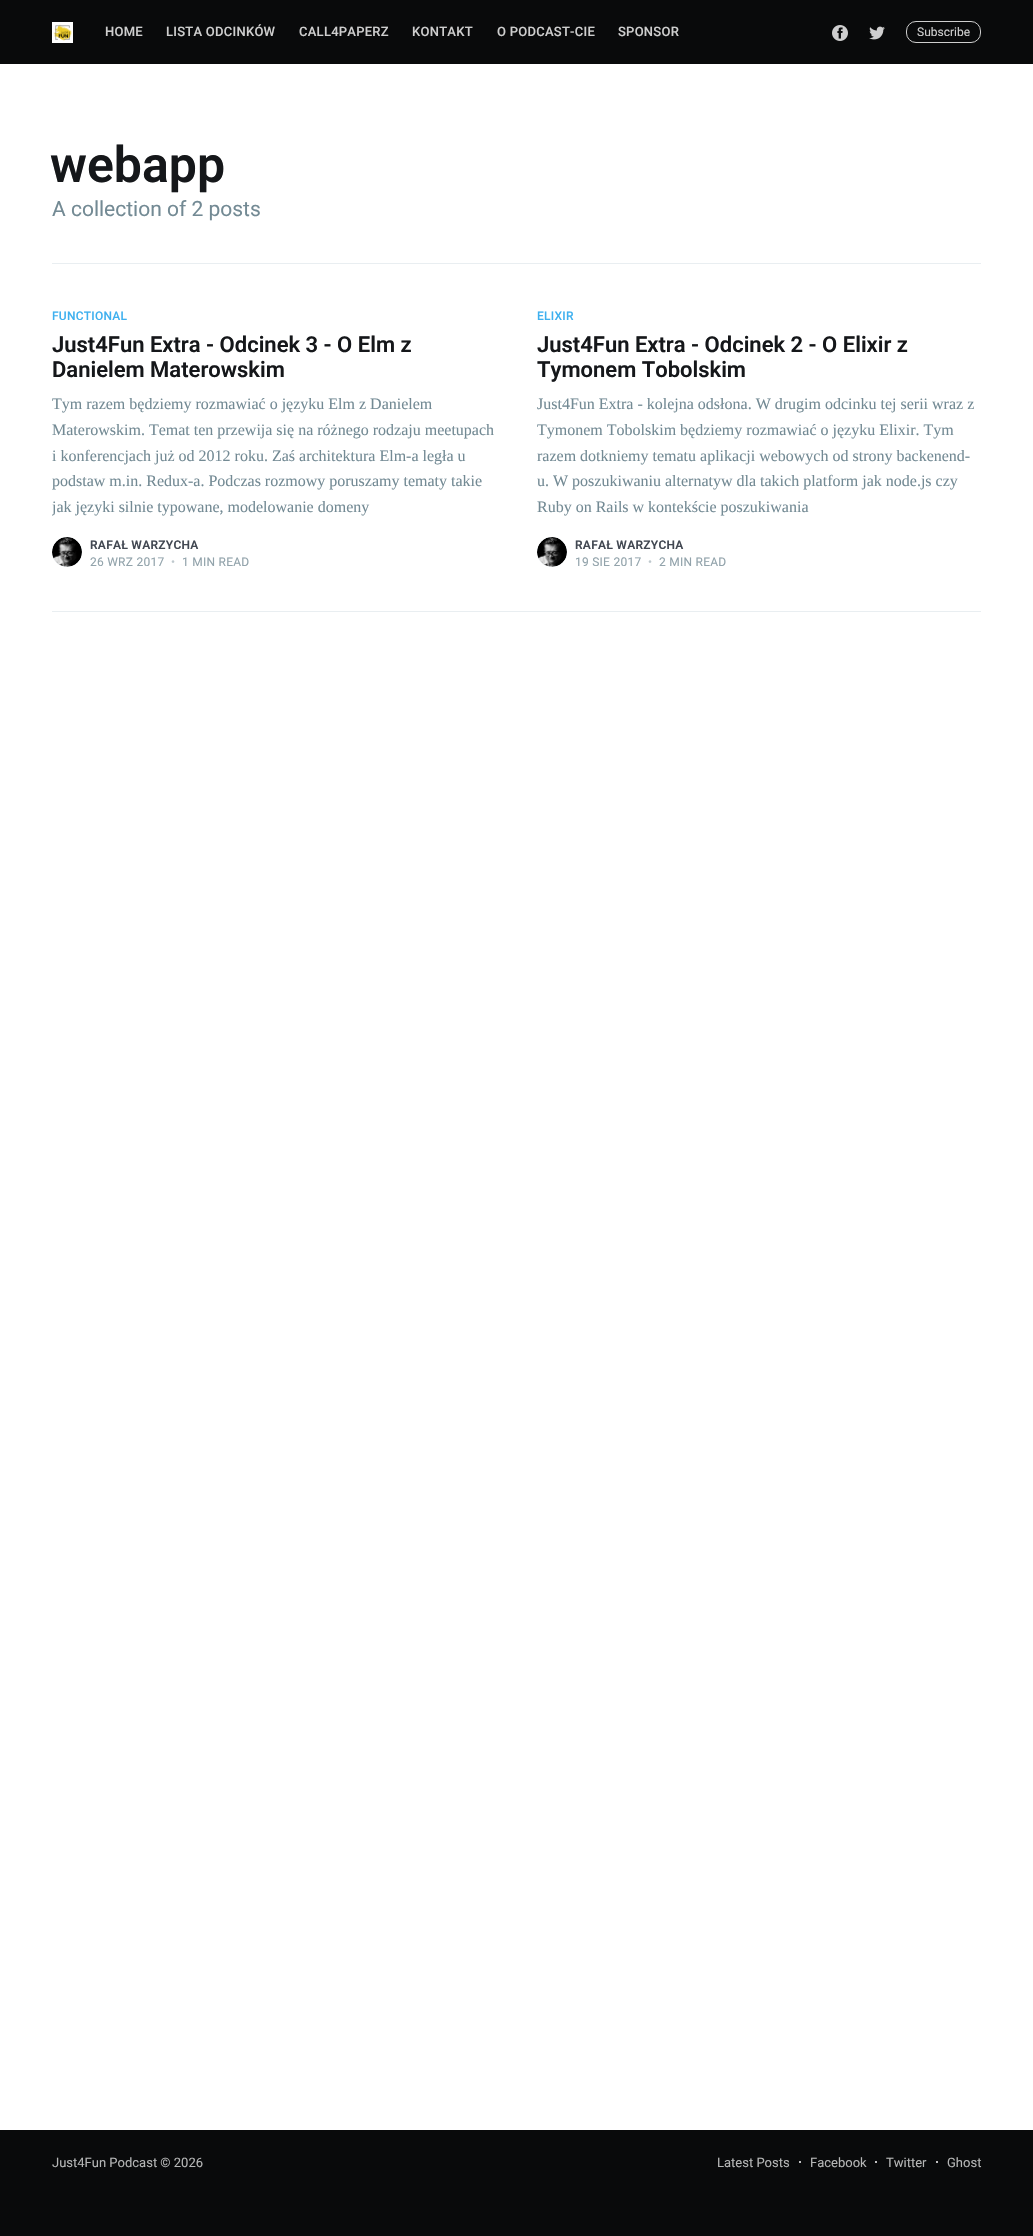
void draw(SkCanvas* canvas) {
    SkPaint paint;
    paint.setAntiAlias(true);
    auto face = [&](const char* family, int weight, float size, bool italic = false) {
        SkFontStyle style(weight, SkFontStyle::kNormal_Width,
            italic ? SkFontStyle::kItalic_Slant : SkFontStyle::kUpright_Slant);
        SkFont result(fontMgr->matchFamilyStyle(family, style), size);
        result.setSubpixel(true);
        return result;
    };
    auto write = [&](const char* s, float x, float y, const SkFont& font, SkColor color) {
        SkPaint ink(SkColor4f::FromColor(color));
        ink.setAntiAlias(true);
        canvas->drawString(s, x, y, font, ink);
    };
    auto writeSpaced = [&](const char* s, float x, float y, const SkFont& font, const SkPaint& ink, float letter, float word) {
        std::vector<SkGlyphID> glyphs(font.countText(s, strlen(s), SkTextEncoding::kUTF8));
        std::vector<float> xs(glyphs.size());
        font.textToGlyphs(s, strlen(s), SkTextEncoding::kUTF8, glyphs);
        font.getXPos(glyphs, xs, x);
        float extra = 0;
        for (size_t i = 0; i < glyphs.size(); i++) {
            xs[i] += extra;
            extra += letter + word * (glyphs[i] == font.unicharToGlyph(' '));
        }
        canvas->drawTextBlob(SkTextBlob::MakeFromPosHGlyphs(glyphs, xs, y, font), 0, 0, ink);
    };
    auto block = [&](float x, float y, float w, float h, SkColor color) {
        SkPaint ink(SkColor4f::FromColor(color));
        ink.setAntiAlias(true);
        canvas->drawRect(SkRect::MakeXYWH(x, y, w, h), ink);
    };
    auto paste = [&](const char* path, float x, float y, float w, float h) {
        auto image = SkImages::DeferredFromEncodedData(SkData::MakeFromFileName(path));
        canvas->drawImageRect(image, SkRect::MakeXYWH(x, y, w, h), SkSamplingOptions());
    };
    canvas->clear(SK_ColorWHITE);
    block(0, 0, 1033, 64, SkColorSetRGB(9, 10, 11));
    paste("pic1.png", 52, 22, 21, 21);
    auto kFont1 = face("Roboto", 500, 13);
    paint.setColor(SkColorSetRGB(206, 206, 206));
    writeSpaced("HOME", 105, 36, kFont1, paint, 0.25f, 0);
    writeSpaced("LISTA ODCINKÓW", 166, 36, kFont1, paint, 0.25f, 0);
    writeSpaced("CALL4PAPERZ", 299, 36, kFont1, paint, 0.25f, 0);
    writeSpaced("KONTAKT", 412, 36, kFont1, paint, 0.25f, 0);
    writeSpaced("O PODCAST-CIE", 497, 36, kFont1, paint, 0.25f, 0);
    writeSpaced("SPONSOR", 618, 36, kFont1, paint, 0.25f, 0);
    paste("pic2.png", 832, 25, 16, 16);
    paste("pic3.png", 869, 26, 16, 14);
    paint.setStyle(SkPaint::kStroke_Style);
    paint.setStrokeWidth(1);
    canvas->drawRoundRect(SkRect::MakeXYWH(906.5f, 21.5f, 74, 21), 9.5f, 9.5f, paint);
    auto kFont2 = face("Roboto", 400, 12);
    write("Subscribe", 917, 36, kFont2, SkColorSetRGB(206, 206, 206));
    block(52, 263, 929, 1, SkColorSetRGB(233, 238, 241));
    auto kFont3 = face("Roboto", 600, 50);
    write("webapp", 50, 182, kFont3, SkColorSetRGB(21, 23, 26));
    auto kFont4 = face("Roboto", 400, 21);
    write("A collection of 2 posts", 52, 216, kFont4, SkColorSetRGB(115, 138, 148));
    block(52, 611, 929, 1, SkColorSetRGB(233, 238, 241));
    auto kFont5 = face("Roboto", 500, 12);
    paint.setStyle(SkPaint::kFill_Style);
    paint.setColor(SkColorSetRGB(62, 176, 239));
    writeSpaced("FUNCTIONAL", 52, 320, kFont5, paint, 0.25f, 0);
    auto kFont6 = face("Roboto", 600, 22);
    write("Just4Fun Extra - Odcinek 3 - O Elm z", 52, 352, kFont6, SkColorSetRGB(21, 23, 26));
    write("Danielem Materowskim", 52, 377, kFont6, SkColorSetRGB(21, 23, 26));
    auto kFont7 = face("Liberation Serif", 400, 16);
    write("Tym razem będziemy rozmawiać o języku Elm z Danielem", 52, 409, kFont7, SkColorSetRGB(115, 138, 148));
    write("Materowskim. Temat ten przewija się na różnego rodzaju meetupach", 52, 435, kFont7, SkColorSetRGB(115, 138, 148));
    write("i konferencjach już od 2012 roku. Zaś architektura Elm-a legła u", 52, 461, kFont7, SkColorSetRGB(115, 138, 148));
    write("podstaw m.in. Redux-a. Podczas rozmowy poruszamy tematy takie", 52, 486, kFont7, SkColorSetRGB(115, 138, 148));
    canvas->save();
    canvas->clipRect(SkRect::MakeXYWH(52, 304, 465, 307));
    write("jak języki silnie typowane, modelowanie domeny", 52, 512, kFont7, SkColorSetRGB(115, 138, 148));
    canvas->restore();
    paint.setColor(SkColorSetRGB(227, 233, 237));
    canvas->drawCircle(67, 552, 15, paint);
    paste("pic4.png", 52, 537, 30, 30);
    auto kFont8 = face("Roboto", 600, 12);
    paint.setColor(SkColorSetRGB(66, 72, 82));
    writeSpaced("RAFAŁ WARZYCHA", 90, 549, kFont8, paint, 0.25f, 0);
    paint.setColor(SkColorSetRGB(146, 163, 171));
    writeSpaced("26 WRZ 2017", 90, 566, kFont2, paint, 0.25f, 0);
    paint.setColor(SkColorSetRGB(190, 200, 205));
    writeSpaced("•", 171, 566, kFont2, paint, 0.25f, 0);
    paint.setColor(SkColorSetRGB(146, 163, 171));
    writeSpaced("1 MIN READ", 182, 566, kFont2, paint, 0.25f, 0);
    paint.setColor(SkColorSetRGB(62, 176, 239));
    writeSpaced("ELIXIR", 537, 320, kFont5, paint, 0.25f, 0);
    write("Just4Fun Extra - Odcinek 2 - O Elixir z", 537, 352, kFont6, SkColorSetRGB(21, 23, 26));
    write("Tymonem Tobolskim", 537, 377, kFont6, SkColorSetRGB(21, 23, 26));
    write("Just4Fun Extra - kolejna odsłona. W drugim odcinku tej serii wraz z", 537, 409, kFont7, SkColorSetRGB(115, 138, 148));
    write("Tymonem Tobolskim będziemy rozmawiać o języku Elixir. Tym", 537, 435, kFont7, SkColorSetRGB(115, 138, 148));
    write("razem dotkniemy tematu aplikacji webowych od strony backenend-", 537, 461, kFont7, SkColorSetRGB(115, 138, 148));
    write("u. W poszukiwaniu alternatyw dla takich platform jak node.js czy", 537, 486, kFont7, SkColorSetRGB(115, 138, 148));
    write("Ruby on Rails w kontekście poszukiwania", 537, 512, kFont7, SkColorSetRGB(115, 138, 148));
    paint.setColor(SkColorSetRGB(227, 233, 237));
    canvas->drawCircle(552, 552, 15, paint);
    paste("pic5.png", 537, 537, 30, 30);
    paint.setColor(SkColorSetRGB(66, 72, 82));
    writeSpaced("RAFAŁ WARZYCHA", 575, 549, kFont8, paint, 0.25f, 0);
    paint.setColor(SkColorSetRGB(146, 163, 171));
    writeSpaced("19 SIE 2017", 575, 566, kFont2, paint, 0.25f, 0);
    paint.setColor(SkColorSetRGB(190, 200, 205));
    writeSpaced("•", 648, 566, kFont2, paint, 0.25f, 0);
    paint.setColor(SkColorSetRGB(146, 163, 171));
    writeSpaced("2 MIN READ", 659, 566, kFont2, paint, 0.25f, 0);
    block(0, 2130, 1033, 106, SkColorSetRGB(9, 10, 11));
    auto kFont9 = face("Roboto", 400, 13);
    write("Just4Fun Podcast © 2026", 52, 2167, kFont9, SkColorSetRGB(181, 182, 182));
    write("Latest Posts", 717, 2167, kFont9, SkColorSetRGB(181, 182, 182));
    paint.setColor(SK_ColorWHITE);
    canvas->drawCircle(800, 2162, 1, paint);
    write("Facebook", 810, 2167, kFont9, SkColorSetRGB(181, 182, 182));
    canvas->drawCircle(876, 2162, 1, paint);
    write("Twitter", 886, 2167, kFont9, SkColorSetRGB(181, 182, 182));
    canvas->drawCircle(937, 2162, 1, paint);
    write("Ghost", 947, 2167, kFont9, SkColorSetRGB(181, 182, 182));
}
